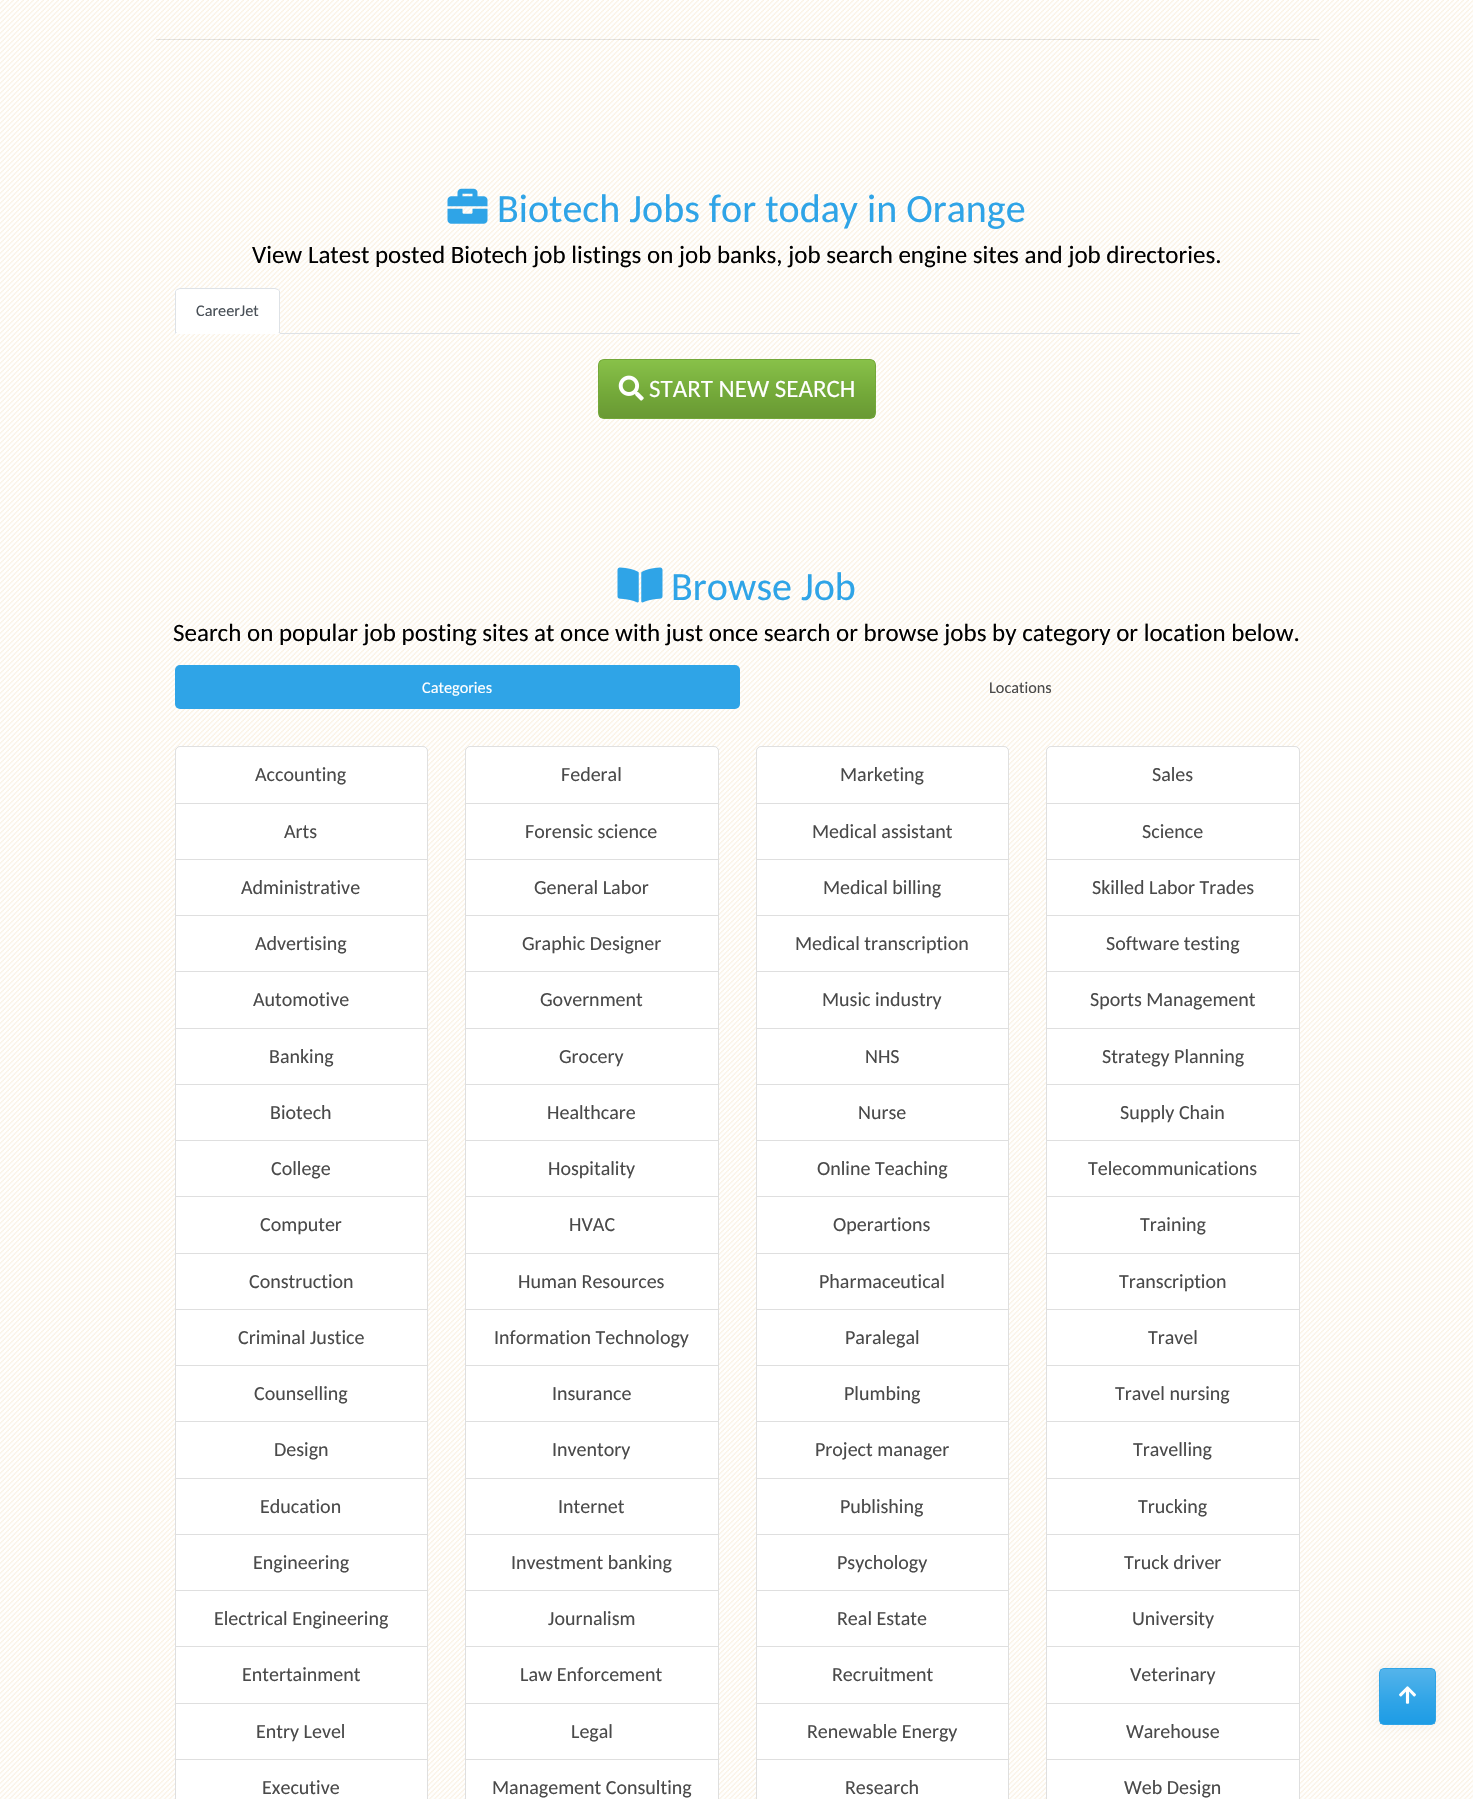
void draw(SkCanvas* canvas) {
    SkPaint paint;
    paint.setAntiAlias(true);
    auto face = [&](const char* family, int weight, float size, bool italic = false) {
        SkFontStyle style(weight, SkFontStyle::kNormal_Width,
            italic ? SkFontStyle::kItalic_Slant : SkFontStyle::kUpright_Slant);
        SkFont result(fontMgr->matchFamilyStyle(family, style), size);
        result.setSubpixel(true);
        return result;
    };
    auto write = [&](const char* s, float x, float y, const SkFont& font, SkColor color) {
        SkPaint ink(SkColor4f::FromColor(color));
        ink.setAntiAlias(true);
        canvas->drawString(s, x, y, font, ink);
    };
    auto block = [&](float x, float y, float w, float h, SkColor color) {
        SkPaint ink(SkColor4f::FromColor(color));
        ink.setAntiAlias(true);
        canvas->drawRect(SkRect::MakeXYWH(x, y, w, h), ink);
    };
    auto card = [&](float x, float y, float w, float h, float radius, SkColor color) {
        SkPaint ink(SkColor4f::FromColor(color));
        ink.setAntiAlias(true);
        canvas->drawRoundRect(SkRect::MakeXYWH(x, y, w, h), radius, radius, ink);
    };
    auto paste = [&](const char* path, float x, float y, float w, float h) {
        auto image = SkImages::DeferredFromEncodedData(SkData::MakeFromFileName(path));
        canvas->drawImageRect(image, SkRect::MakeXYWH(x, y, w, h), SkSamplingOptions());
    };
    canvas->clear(SK_ColorWHITE);
    paste("pic1.png", 0, 0, 1473, 1799);
    block(156, 39, 1163, 1, SkColorSetARGB(26, 0, 0, 0));
    paste("pic2.png", 447, 188, 41, 36);
    auto kFont1 = face("Carlito", 400, 40);
    write("Biotech Jobs for today in Orange", 497, 222, kFont1, SkColorSetRGB(47, 164, 231));
    auto kFont2 = face("Carlito", 400, 25);
    write("View Latest posted Biotech job listings on job banks, job search engine sites and job directories.", 252, 263, kFont2, SK_ColorBLACK);
    block(280, 333, 1020, 1, SkColorSetRGB(222, 226, 230));
    paint.setColor(SK_ColorWHITE);
    canvas->drawPath(SkPathBuilder().moveTo(180, 288).lineTo(275, 288).cubicTo(278, 288, 280, 290, 280, 293).lineTo(280, 334).lineTo(175, 334).lineTo(175, 293).cubicTo(175, 290, 177, 288, 180, 288).close().detach(), paint);
    paint.setColor(SkColorSetRGB(222, 226, 230));
    canvas->drawPath(SkPathBuilder().moveTo(180, 288).lineTo(177, 289).lineTo(177, 290).lineTo(180, 289).lineTo(275, 289).lineTo(278, 290).lineTo(278, 289).lineTo(275, 288).close().detach(), paint);
    canvas->drawPath(SkPathBuilder().moveTo(280, 334).lineTo(280, 291).lineTo(278, 289).lineTo(278, 290).lineTo(279, 291).lineTo(279, 332).lineTo(278, 332).close().detach(), paint);
    paint.setColor(SK_ColorWHITE);
    canvas->drawPath(SkPathBuilder().moveTo(280, 334).lineTo(175, 334).lineTo(177, 332).lineTo(278, 332).close().detach(), paint);
    paint.setColor(SkColorSetRGB(222, 226, 230));
    canvas->drawPath(SkPathBuilder().moveTo(175, 334).lineTo(177, 332).lineTo(176, 332).lineTo(176, 291).lineTo(177, 290).lineTo(177, 289).cubicTo(176, 290, 175, 291, 175, 292).close().detach(), paint);
    auto kFont3 = face("Carlito", 400, 16.25f);
    write("CareerJet", 196, 316, kFont3, SkColorSetRGB(73, 80, 87));
    canvas->save();
    canvas->clipPath(SkPathBuilder().moveTo(604, 359).lineTo(870, 359).cubicTo(873.5f, 359, 876, 361.5f, 876, 365).lineTo(876, 413).cubicTo(876, 416.5f, 873.5f, 419, 870, 419).lineTo(604, 419).cubicTo(600.5f, 419, 598, 416.5f, 598, 413).lineTo(598, 365).cubicTo(598, 361.5f, 600.5f, 359, 604, 359).close().detach(), true);
    {
        const SkColor colors[] = {SkColorSetRGB(136, 193, 73), SkColorSetRGB(115, 168, 57), SkColorSetRGB(105, 153, 52)};
        const float stops[] = {0, 0.6f, 1};
        const SkPoint ends[] = {{737, 360}, {737, 418}};
        paint.setShader(SkGradientShader::MakeLinear(ends, colors, stops, 3, SkTileMode::kClamp));
        paint.setAlpha(255);
    }
    canvas->drawRect(SkRect::MakeXYWH(599, 360, 276, 58), paint);
    canvas->restore();
    paint.setStyle(SkPaint::kStroke_Style);
    paint.setStrokeWidth(1);
    paint.setShader(nullptr);
    paint.setColor(SkColorSetRGB(115, 168, 57));
    canvas->drawRoundRect(SkRect::MakeXYWH(598.5f, 359.5f, 277, 59), 5.5f, 5.5f, paint);
    paste("pic3.png", 618, 375, 26, 26);
    write("START NEW SEARCH", 649, 397, kFont2, SK_ColorWHITE);
    paste("pic4.png", 617, 567, 46, 36);
    write("Browse Job", 671, 600, kFont1, SkColorSetRGB(47, 164, 231));
    write("Search on popular job posting sites at once with just once search or browse jobs by category or location below.", 173, 641, kFont2, SK_ColorBLACK);
    card(175, 665, 565, 44, 5, SkColorSetRGB(47, 164, 231));
    write("Categories", 422, 693, kFont3, SK_ColorWHITE);
    write("Locations", 989, 693, kFont3, SkColorSetRGB(74, 74, 74));
    paint.setStyle(SkPaint::kFill_Style);
    paint.setColor(SK_ColorWHITE);
    canvas->drawPath(SkPathBuilder().moveTo(180, 746).lineTo(423, 746).cubicTo(426, 746, 428, 748, 428, 751).lineTo(428, 804).lineTo(175, 804).lineTo(175, 751).cubicTo(175, 748, 177, 746, 180, 746).close().detach(), paint);
    paint.setStyle(SkPaint::kStroke_Style);
    paint.setColor(SkColorSetARGB(31, 0, 0, 0));
    canvas->drawPath(SkPathBuilder().moveTo(180, 746.5f).lineTo(423, 746.5f).cubicTo(425.5f, 746.5f, 427.5f, 748.5f, 427.5f, 751).lineTo(427.5f, 803.5f).lineTo(175.5f, 803.5f).lineTo(175.5f, 751).cubicTo(175.5f, 748.5f, 177.5f, 746.5f, 180, 746.5f).close().detach(), paint);
    auto kFont4 = face("Carlito", 400, 20);
    write("Accounting", 255, 781, kFont4, SkColorSetRGB(74, 74, 74));
    paint.setStyle(SkPaint::kFill_Style);
    paint.setColor(SK_ColorWHITE);
    canvas->drawRect(SkRect::MakeXYWH(175.5f, 803.5f, 252, 56), paint);
    paint.setStyle(SkPaint::kStroke_Style);
    paint.setColor(SkColorSetRGB(223, 223, 223));
    canvas->drawRect(SkRect::MakeXYWH(175.5f, 803.5f, 252, 56), paint);
    write("Arts", 284, 838, kFont4, SkColorSetRGB(74, 74, 74));
    paint.setStyle(SkPaint::kFill_Style);
    paint.setColor(SK_ColorWHITE);
    canvas->drawRect(SkRect::MakeXYWH(175.5f, 859.5f, 252, 56), paint);
    paint.setStyle(SkPaint::kStroke_Style);
    paint.setColor(SkColorSetRGB(223, 223, 223));
    canvas->drawRect(SkRect::MakeXYWH(175.5f, 859.5f, 252, 56), paint);
    write("Administrative", 241, 894, kFont4, SkColorSetRGB(74, 74, 74));
    block(176, 916, 251, 55, SK_ColorWHITE);
    canvas->drawRect(SkRect::MakeXYWH(175.5f, 915.5f, 252, 57), paint);
    write("Advertising", 255, 950, kFont4, SkColorSetRGB(74, 74, 74));
    paint.setStyle(SkPaint::kFill_Style);
    paint.setColor(SK_ColorWHITE);
    canvas->drawRect(SkRect::MakeXYWH(175.5f, 971.5f, 252, 57), paint);
    paint.setStyle(SkPaint::kStroke_Style);
    paint.setColor(SkColorSetRGB(223, 223, 223));
    canvas->drawRect(SkRect::MakeXYWH(175.5f, 971.5f, 252, 57), paint);
    write("Automotive", 253, 1006, kFont4, SkColorSetRGB(74, 74, 74));
    paint.setStyle(SkPaint::kFill_Style);
    paint.setColor(SK_ColorWHITE);
    canvas->drawRect(SkRect::MakeXYWH(175.5f, 1028.5f, 252, 56), paint);
    paint.setStyle(SkPaint::kStroke_Style);
    paint.setColor(SkColorSetRGB(223, 223, 223));
    canvas->drawRect(SkRect::MakeXYWH(175.5f, 1028.5f, 252, 56), paint);
    write("Banking", 269, 1063, kFont4, SkColorSetRGB(74, 74, 74));
    paint.setStyle(SkPaint::kFill_Style);
    paint.setColor(SK_ColorWHITE);
    canvas->drawRect(SkRect::MakeXYWH(175.5f, 1084.5f, 252, 56), paint);
    paint.setStyle(SkPaint::kStroke_Style);
    paint.setColor(SkColorSetRGB(223, 223, 223));
    canvas->drawRect(SkRect::MakeXYWH(175.5f, 1084.5f, 252, 56), paint);
    write("Biotech", 270, 1119, kFont4, SkColorSetRGB(74, 74, 74));
    block(176, 1141, 251, 55, SK_ColorWHITE);
    canvas->drawRect(SkRect::MakeXYWH(175.5f, 1140.5f, 252, 57), paint);
    write("College", 271, 1175, kFont4, SkColorSetRGB(74, 74, 74));
    paint.setStyle(SkPaint::kFill_Style);
    paint.setColor(SK_ColorWHITE);
    canvas->drawRect(SkRect::MakeXYWH(175.5f, 1196.5f, 252, 57), paint);
    paint.setStyle(SkPaint::kStroke_Style);
    paint.setColor(SkColorSetRGB(223, 223, 223));
    canvas->drawRect(SkRect::MakeXYWH(175.5f, 1196.5f, 252, 57), paint);
    write("Computer", 260, 1231, kFont4, SkColorSetRGB(74, 74, 74));
    paint.setStyle(SkPaint::kFill_Style);
    paint.setColor(SK_ColorWHITE);
    canvas->drawRect(SkRect::MakeXYWH(175.5f, 1253.5f, 252, 56), paint);
    paint.setStyle(SkPaint::kStroke_Style);
    paint.setColor(SkColorSetRGB(223, 223, 223));
    canvas->drawRect(SkRect::MakeXYWH(175.5f, 1253.5f, 252, 56), paint);
    write("Construction", 249, 1288, kFont4, SkColorSetRGB(74, 74, 74));
    paint.setStyle(SkPaint::kFill_Style);
    paint.setColor(SK_ColorWHITE);
    canvas->drawRect(SkRect::MakeXYWH(175.5f, 1309.5f, 252, 56), paint);
    paint.setStyle(SkPaint::kStroke_Style);
    paint.setColor(SkColorSetRGB(223, 223, 223));
    canvas->drawRect(SkRect::MakeXYWH(175.5f, 1309.5f, 252, 56), paint);
    write("Criminal Justice", 238, 1344, kFont4, SkColorSetRGB(74, 74, 74));
    block(176, 1366, 251, 55, SK_ColorWHITE);
    canvas->drawRect(SkRect::MakeXYWH(175.5f, 1365.5f, 252, 57), paint);
    write("Counselling", 254, 1400, kFont4, SkColorSetRGB(74, 74, 74));
    paint.setStyle(SkPaint::kFill_Style);
    paint.setColor(SK_ColorWHITE);
    canvas->drawRect(SkRect::MakeXYWH(175.5f, 1421.5f, 252, 57), paint);
    paint.setStyle(SkPaint::kStroke_Style);
    paint.setColor(SkColorSetRGB(223, 223, 223));
    canvas->drawRect(SkRect::MakeXYWH(175.5f, 1421.5f, 252, 57), paint);
    write("Design", 274, 1456, kFont4, SkColorSetRGB(74, 74, 74));
    paint.setStyle(SkPaint::kFill_Style);
    paint.setColor(SK_ColorWHITE);
    canvas->drawRect(SkRect::MakeXYWH(175.5f, 1478.5f, 252, 56), paint);
    paint.setStyle(SkPaint::kStroke_Style);
    paint.setColor(SkColorSetRGB(223, 223, 223));
    canvas->drawRect(SkRect::MakeXYWH(175.5f, 1478.5f, 252, 56), paint);
    write("Education", 260, 1513, kFont4, SkColorSetRGB(74, 74, 74));
    paint.setStyle(SkPaint::kFill_Style);
    paint.setColor(SK_ColorWHITE);
    canvas->drawRect(SkRect::MakeXYWH(175.5f, 1534.5f, 252, 56), paint);
    paint.setStyle(SkPaint::kStroke_Style);
    paint.setColor(SkColorSetRGB(223, 223, 223));
    canvas->drawRect(SkRect::MakeXYWH(175.5f, 1534.5f, 252, 56), paint);
    write("Engineering", 253, 1569, kFont4, SkColorSetRGB(74, 74, 74));
    block(176, 1591, 251, 55, SK_ColorWHITE);
    canvas->drawRect(SkRect::MakeXYWH(175.5f, 1590.5f, 252, 57), paint);
    write("Electrical Engineering", 214, 1625, kFont4, SkColorSetRGB(74, 74, 74));
    paint.setStyle(SkPaint::kFill_Style);
    paint.setColor(SK_ColorWHITE);
    canvas->drawRect(SkRect::MakeXYWH(175.5f, 1646.5f, 252, 57), paint);
    paint.setStyle(SkPaint::kStroke_Style);
    paint.setColor(SkColorSetRGB(223, 223, 223));
    canvas->drawRect(SkRect::MakeXYWH(175.5f, 1646.5f, 252, 57), paint);
    write("Entertainment", 242, 1681, kFont4, SkColorSetRGB(74, 74, 74));
    paint.setStyle(SkPaint::kFill_Style);
    paint.setColor(SK_ColorWHITE);
    canvas->drawRect(SkRect::MakeXYWH(175.5f, 1703.5f, 252, 56), paint);
    paint.setStyle(SkPaint::kStroke_Style);
    paint.setColor(SkColorSetRGB(223, 223, 223));
    canvas->drawRect(SkRect::MakeXYWH(175.5f, 1703.5f, 252, 56), paint);
    write("Entry Level", 256, 1738, kFont4, SkColorSetRGB(74, 74, 74));
    paint.setStyle(SkPaint::kFill_Style);
    paint.setColor(SK_ColorWHITE);
    canvas->drawRect(SkRect::MakeXYWH(175.5f, 1759.5f, 252, 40), paint);
    paint.setStyle(SkPaint::kStroke_Style);
    paint.setColor(SkColorSetRGB(223, 223, 223));
    canvas->drawRect(SkRect::MakeXYWH(175.5f, 1759.5f, 252, 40), paint);
    write("Executive", 262, 1794, kFont4, SkColorSetRGB(74, 74, 74));
    paint.setStyle(SkPaint::kFill_Style);
    paint.setColor(SK_ColorWHITE);
    canvas->drawPath(SkPathBuilder().moveTo(470, 746).lineTo(714, 746).cubicTo(717, 746, 719, 748, 719, 751).lineTo(719, 804).lineTo(465, 804).lineTo(465, 751).cubicTo(465, 748, 467, 746, 470, 746).close().detach(), paint);
    paint.setStyle(SkPaint::kStroke_Style);
    paint.setColor(SkColorSetARGB(31, 0, 0, 0));
    canvas->drawPath(SkPathBuilder().moveTo(470, 746.5f).lineTo(714, 746.5f).cubicTo(716.5f, 746.5f, 718.5f, 748.5f, 718.5f, 751).lineTo(718.5f, 803.5f).lineTo(465.5f, 803.5f).lineTo(465.5f, 751).cubicTo(465.5f, 748.5f, 467.5f, 746.5f, 470, 746.5f).close().detach(), paint);
    write("Federal", 561, 781, kFont4, SkColorSetRGB(74, 74, 74));
    paint.setStyle(SkPaint::kFill_Style);
    paint.setColor(SK_ColorWHITE);
    canvas->drawRect(SkRect::MakeXYWH(465.5f, 803.5f, 253, 56), paint);
    paint.setStyle(SkPaint::kStroke_Style);
    paint.setColor(SkColorSetRGB(223, 223, 223));
    canvas->drawRect(SkRect::MakeXYWH(465.5f, 803.5f, 253, 56), paint);
    write("Forensic science", 525, 838, kFont4, SkColorSetRGB(74, 74, 74));
    paint.setStyle(SkPaint::kFill_Style);
    paint.setColor(SK_ColorWHITE);
    canvas->drawRect(SkRect::MakeXYWH(465.5f, 859.5f, 253, 56), paint);
    paint.setStyle(SkPaint::kStroke_Style);
    paint.setColor(SkColorSetRGB(223, 223, 223));
    canvas->drawRect(SkRect::MakeXYWH(465.5f, 859.5f, 253, 56), paint);
    write("General Labor", 534, 894, kFont4, SkColorSetRGB(74, 74, 74));
    block(466, 916, 252, 55, SK_ColorWHITE);
    canvas->drawRect(SkRect::MakeXYWH(465.5f, 915.5f, 253, 57), paint);
    write("Graphic Designer", 522, 950, kFont4, SkColorSetRGB(74, 74, 74));
    paint.setStyle(SkPaint::kFill_Style);
    paint.setColor(SK_ColorWHITE);
    canvas->drawRect(SkRect::MakeXYWH(465.5f, 971.5f, 253, 57), paint);
    paint.setStyle(SkPaint::kStroke_Style);
    paint.setColor(SkColorSetRGB(223, 223, 223));
    canvas->drawRect(SkRect::MakeXYWH(465.5f, 971.5f, 253, 57), paint);
    write("Government", 540, 1006, kFont4, SkColorSetRGB(74, 74, 74));
    paint.setStyle(SkPaint::kFill_Style);
    paint.setColor(SK_ColorWHITE);
    canvas->drawRect(SkRect::MakeXYWH(465.5f, 1028.5f, 253, 56), paint);
    paint.setStyle(SkPaint::kStroke_Style);
    paint.setColor(SkColorSetRGB(223, 223, 223));
    canvas->drawRect(SkRect::MakeXYWH(465.5f, 1028.5f, 253, 56), paint);
    write("Grocery", 559, 1063, kFont4, SkColorSetRGB(74, 74, 74));
    paint.setStyle(SkPaint::kFill_Style);
    paint.setColor(SK_ColorWHITE);
    canvas->drawRect(SkRect::MakeXYWH(465.5f, 1084.5f, 253, 56), paint);
    paint.setStyle(SkPaint::kStroke_Style);
    paint.setColor(SkColorSetRGB(223, 223, 223));
    canvas->drawRect(SkRect::MakeXYWH(465.5f, 1084.5f, 253, 56), paint);
    write("Healthcare", 547, 1119, kFont4, SkColorSetRGB(74, 74, 74));
    block(466, 1141, 252, 55, SK_ColorWHITE);
    canvas->drawRect(SkRect::MakeXYWH(465.5f, 1140.5f, 253, 57), paint);
    write("Hospitality", 548, 1175, kFont4, SkColorSetRGB(74, 74, 74));
    paint.setStyle(SkPaint::kFill_Style);
    paint.setColor(SK_ColorWHITE);
    canvas->drawRect(SkRect::MakeXYWH(465.5f, 1196.5f, 253, 57), paint);
    paint.setStyle(SkPaint::kStroke_Style);
    paint.setColor(SkColorSetRGB(223, 223, 223));
    canvas->drawRect(SkRect::MakeXYWH(465.5f, 1196.5f, 253, 57), paint);
    write("HVAC", 569, 1231, kFont4, SkColorSetRGB(74, 74, 74));
    paint.setStyle(SkPaint::kFill_Style);
    paint.setColor(SK_ColorWHITE);
    canvas->drawRect(SkRect::MakeXYWH(465.5f, 1253.5f, 253, 56), paint);
    paint.setStyle(SkPaint::kStroke_Style);
    paint.setColor(SkColorSetRGB(223, 223, 223));
    canvas->drawRect(SkRect::MakeXYWH(465.5f, 1253.5f, 253, 56), paint);
    write("Human Resources", 518, 1288, kFont4, SkColorSetRGB(74, 74, 74));
    paint.setStyle(SkPaint::kFill_Style);
    paint.setColor(SK_ColorWHITE);
    canvas->drawRect(SkRect::MakeXYWH(465.5f, 1309.5f, 253, 56), paint);
    paint.setStyle(SkPaint::kStroke_Style);
    paint.setColor(SkColorSetRGB(223, 223, 223));
    canvas->drawRect(SkRect::MakeXYWH(465.5f, 1309.5f, 253, 56), paint);
    write("Information Technology", 494, 1344, kFont4, SkColorSetRGB(74, 74, 74));
    block(466, 1366, 252, 55, SK_ColorWHITE);
    canvas->drawRect(SkRect::MakeXYWH(465.5f, 1365.5f, 253, 57), paint);
    write("Insurance", 552, 1400, kFont4, SkColorSetRGB(74, 74, 74));
    paint.setStyle(SkPaint::kFill_Style);
    paint.setColor(SK_ColorWHITE);
    canvas->drawRect(SkRect::MakeXYWH(465.5f, 1421.5f, 253, 57), paint);
    paint.setStyle(SkPaint::kStroke_Style);
    paint.setColor(SkColorSetRGB(223, 223, 223));
    canvas->drawRect(SkRect::MakeXYWH(465.5f, 1421.5f, 253, 57), paint);
    write("Inventory", 552, 1456, kFont4, SkColorSetRGB(74, 74, 74));
    paint.setStyle(SkPaint::kFill_Style);
    paint.setColor(SK_ColorWHITE);
    canvas->drawRect(SkRect::MakeXYWH(465.5f, 1478.5f, 253, 56), paint);
    paint.setStyle(SkPaint::kStroke_Style);
    paint.setColor(SkColorSetRGB(223, 223, 223));
    canvas->drawRect(SkRect::MakeXYWH(465.5f, 1478.5f, 253, 56), paint);
    write("Internet", 558, 1513, kFont4, SkColorSetRGB(74, 74, 74));
    paint.setStyle(SkPaint::kFill_Style);
    paint.setColor(SK_ColorWHITE);
    canvas->drawRect(SkRect::MakeXYWH(465.5f, 1534.5f, 253, 56), paint);
    paint.setStyle(SkPaint::kStroke_Style);
    paint.setColor(SkColorSetRGB(223, 223, 223));
    canvas->drawRect(SkRect::MakeXYWH(465.5f, 1534.5f, 253, 56), paint);
    write("Investment banking", 511, 1569, kFont4, SkColorSetRGB(74, 74, 74));
    block(466, 1591, 252, 55, SK_ColorWHITE);
    canvas->drawRect(SkRect::MakeXYWH(465.5f, 1590.5f, 253, 57), paint);
    write("Journalism", 548, 1625, kFont4, SkColorSetRGB(74, 74, 74));
    paint.setStyle(SkPaint::kFill_Style);
    paint.setColor(SK_ColorWHITE);
    canvas->drawRect(SkRect::MakeXYWH(465.5f, 1646.5f, 253, 57), paint);
    paint.setStyle(SkPaint::kStroke_Style);
    paint.setColor(SkColorSetRGB(223, 223, 223));
    canvas->drawRect(SkRect::MakeXYWH(465.5f, 1646.5f, 253, 57), paint);
    write("Law Enforcement", 520, 1681, kFont4, SkColorSetRGB(74, 74, 74));
    paint.setStyle(SkPaint::kFill_Style);
    paint.setColor(SK_ColorWHITE);
    canvas->drawRect(SkRect::MakeXYWH(465.5f, 1703.5f, 253, 56), paint);
    paint.setStyle(SkPaint::kStroke_Style);
    paint.setColor(SkColorSetRGB(223, 223, 223));
    canvas->drawRect(SkRect::MakeXYWH(465.5f, 1703.5f, 253, 56), paint);
    write("Legal", 571, 1738, kFont4, SkColorSetRGB(74, 74, 74));
    paint.setStyle(SkPaint::kFill_Style);
    paint.setColor(SK_ColorWHITE);
    canvas->drawRect(SkRect::MakeXYWH(465.5f, 1759.5f, 253, 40), paint);
    paint.setStyle(SkPaint::kStroke_Style);
    paint.setColor(SkColorSetRGB(223, 223, 223));
    canvas->drawRect(SkRect::MakeXYWH(465.5f, 1759.5f, 253, 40), paint);
    write("Management Consulting", 492, 1794, kFont4, SkColorSetRGB(74, 74, 74));
    paint.setStyle(SkPaint::kFill_Style);
    paint.setColor(SK_ColorWHITE);
    canvas->drawPath(SkPathBuilder().moveTo(761, 746).lineTo(1004, 746).cubicTo(1007, 746, 1009, 748, 1009, 751).lineTo(1009, 804).lineTo(756, 804).lineTo(756, 751).cubicTo(756, 748, 758, 746, 761, 746).close().detach(), paint);
    paint.setStyle(SkPaint::kStroke_Style);
    paint.setColor(SkColorSetARGB(31, 0, 0, 0));
    canvas->drawPath(SkPathBuilder().moveTo(761, 746.5f).lineTo(1004, 746.5f).cubicTo(1006.5f, 746.5f, 1008.5f, 748.5f, 1008.5f, 751).lineTo(1008.5f, 803.5f).lineTo(756.5f, 803.5f).lineTo(756.5f, 751).cubicTo(756.5f, 748.5f, 758.5f, 746.5f, 761, 746.5f).close().detach(), paint);
    write("Marketing", 840, 781, kFont4, SkColorSetRGB(74, 74, 74));
    paint.setStyle(SkPaint::kFill_Style);
    paint.setColor(SK_ColorWHITE);
    canvas->drawRect(SkRect::MakeXYWH(756.5f, 803.5f, 252, 56), paint);
    paint.setStyle(SkPaint::kStroke_Style);
    paint.setColor(SkColorSetRGB(223, 223, 223));
    canvas->drawRect(SkRect::MakeXYWH(756.5f, 803.5f, 252, 56), paint);
    write("Medical assistant", 812, 838, kFont4, SkColorSetRGB(74, 74, 74));
    paint.setStyle(SkPaint::kFill_Style);
    paint.setColor(SK_ColorWHITE);
    canvas->drawRect(SkRect::MakeXYWH(756.5f, 859.5f, 252, 56), paint);
    paint.setStyle(SkPaint::kStroke_Style);
    paint.setColor(SkColorSetRGB(223, 223, 223));
    canvas->drawRect(SkRect::MakeXYWH(756.5f, 859.5f, 252, 56), paint);
    write("Medical billing", 823, 894, kFont4, SkColorSetRGB(74, 74, 74));
    block(757, 916, 251, 55, SK_ColorWHITE);
    canvas->drawRect(SkRect::MakeXYWH(756.5f, 915.5f, 252, 57), paint);
    write("Medical transcription", 795, 950, kFont4, SkColorSetRGB(74, 74, 74));
    paint.setStyle(SkPaint::kFill_Style);
    paint.setColor(SK_ColorWHITE);
    canvas->drawRect(SkRect::MakeXYWH(756.5f, 971.5f, 252, 57), paint);
    paint.setStyle(SkPaint::kStroke_Style);
    paint.setColor(SkColorSetRGB(223, 223, 223));
    canvas->drawRect(SkRect::MakeXYWH(756.5f, 971.5f, 252, 57), paint);
    write("Music industry", 822, 1006, kFont4, SkColorSetRGB(74, 74, 74));
    paint.setStyle(SkPaint::kFill_Style);
    paint.setColor(SK_ColorWHITE);
    canvas->drawRect(SkRect::MakeXYWH(756.5f, 1028.5f, 252, 56), paint);
    paint.setStyle(SkPaint::kStroke_Style);
    paint.setColor(SkColorSetRGB(223, 223, 223));
    canvas->drawRect(SkRect::MakeXYWH(756.5f, 1028.5f, 252, 56), paint);
    write("NHS", 865, 1063, kFont4, SkColorSetRGB(74, 74, 74));
    paint.setStyle(SkPaint::kFill_Style);
    paint.setColor(SK_ColorWHITE);
    canvas->drawRect(SkRect::MakeXYWH(756.5f, 1084.5f, 252, 56), paint);
    paint.setStyle(SkPaint::kStroke_Style);
    paint.setColor(SkColorSetRGB(223, 223, 223));
    canvas->drawRect(SkRect::MakeXYWH(756.5f, 1084.5f, 252, 56), paint);
    write("Nurse", 858, 1119, kFont4, SkColorSetRGB(74, 74, 74));
    block(757, 1141, 251, 55, SK_ColorWHITE);
    canvas->drawRect(SkRect::MakeXYWH(756.5f, 1140.5f, 252, 57), paint);
    write("Online Teaching", 817, 1175, kFont4, SkColorSetRGB(74, 74, 74));
    paint.setStyle(SkPaint::kFill_Style);
    paint.setColor(SK_ColorWHITE);
    canvas->drawRect(SkRect::MakeXYWH(756.5f, 1196.5f, 252, 57), paint);
    paint.setStyle(SkPaint::kStroke_Style);
    paint.setColor(SkColorSetRGB(223, 223, 223));
    canvas->drawRect(SkRect::MakeXYWH(756.5f, 1196.5f, 252, 57), paint);
    write("Operartions", 833, 1231, kFont4, SkColorSetRGB(74, 74, 74));
    paint.setStyle(SkPaint::kFill_Style);
    paint.setColor(SK_ColorWHITE);
    canvas->drawRect(SkRect::MakeXYWH(756.5f, 1253.5f, 252, 56), paint);
    paint.setStyle(SkPaint::kStroke_Style);
    paint.setColor(SkColorSetRGB(223, 223, 223));
    canvas->drawRect(SkRect::MakeXYWH(756.5f, 1253.5f, 252, 56), paint);
    write("Pharmaceutical", 819, 1288, kFont4, SkColorSetRGB(74, 74, 74));
    paint.setStyle(SkPaint::kFill_Style);
    paint.setColor(SK_ColorWHITE);
    canvas->drawRect(SkRect::MakeXYWH(756.5f, 1309.5f, 252, 56), paint);
    paint.setStyle(SkPaint::kStroke_Style);
    paint.setColor(SkColorSetRGB(223, 223, 223));
    canvas->drawRect(SkRect::MakeXYWH(756.5f, 1309.5f, 252, 56), paint);
    write("Paralegal", 845, 1344, kFont4, SkColorSetRGB(74, 74, 74));
    block(757, 1366, 251, 55, SK_ColorWHITE);
    canvas->drawRect(SkRect::MakeXYWH(756.5f, 1365.5f, 252, 57), paint);
    write("Plumbing", 844, 1400, kFont4, SkColorSetRGB(74, 74, 74));
    paint.setStyle(SkPaint::kFill_Style);
    paint.setColor(SK_ColorWHITE);
    canvas->drawRect(SkRect::MakeXYWH(756.5f, 1421.5f, 252, 57), paint);
    paint.setStyle(SkPaint::kStroke_Style);
    paint.setColor(SkColorSetRGB(223, 223, 223));
    canvas->drawRect(SkRect::MakeXYWH(756.5f, 1421.5f, 252, 57), paint);
    write("Project manager", 815, 1456, kFont4, SkColorSetRGB(74, 74, 74));
    paint.setStyle(SkPaint::kFill_Style);
    paint.setColor(SK_ColorWHITE);
    canvas->drawRect(SkRect::MakeXYWH(756.5f, 1478.5f, 252, 56), paint);
    paint.setStyle(SkPaint::kStroke_Style);
    paint.setColor(SkColorSetRGB(223, 223, 223));
    canvas->drawRect(SkRect::MakeXYWH(756.5f, 1478.5f, 252, 56), paint);
    write("Publishing", 840, 1513, kFont4, SkColorSetRGB(74, 74, 74));
    paint.setStyle(SkPaint::kFill_Style);
    paint.setColor(SK_ColorWHITE);
    canvas->drawRect(SkRect::MakeXYWH(756.5f, 1534.5f, 252, 56), paint);
    paint.setStyle(SkPaint::kStroke_Style);
    paint.setColor(SkColorSetRGB(223, 223, 223));
    canvas->drawRect(SkRect::MakeXYWH(756.5f, 1534.5f, 252, 56), paint);
    write("Psychology", 837, 1569, kFont4, SkColorSetRGB(74, 74, 74));
    block(757, 1591, 251, 55, SK_ColorWHITE);
    canvas->drawRect(SkRect::MakeXYWH(756.5f, 1590.5f, 252, 57), paint);
    write("Real Estate", 837, 1625, kFont4, SkColorSetRGB(74, 74, 74));
    paint.setStyle(SkPaint::kFill_Style);
    paint.setColor(SK_ColorWHITE);
    canvas->drawRect(SkRect::MakeXYWH(756.5f, 1646.5f, 252, 57), paint);
    paint.setStyle(SkPaint::kStroke_Style);
    paint.setColor(SkColorSetRGB(223, 223, 223));
    canvas->drawRect(SkRect::MakeXYWH(756.5f, 1646.5f, 252, 57), paint);
    write("Recruitment", 832, 1681, kFont4, SkColorSetRGB(74, 74, 74));
    paint.setStyle(SkPaint::kFill_Style);
    paint.setColor(SK_ColorWHITE);
    canvas->drawRect(SkRect::MakeXYWH(756.5f, 1703.5f, 252, 56), paint);
    paint.setStyle(SkPaint::kStroke_Style);
    paint.setColor(SkColorSetRGB(223, 223, 223));
    canvas->drawRect(SkRect::MakeXYWH(756.5f, 1703.5f, 252, 56), paint);
    write("Renewable Energy", 807, 1738, kFont4, SkColorSetRGB(74, 74, 74));
    paint.setStyle(SkPaint::kFill_Style);
    paint.setColor(SK_ColorWHITE);
    canvas->drawRect(SkRect::MakeXYWH(756.5f, 1759.5f, 252, 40), paint);
    paint.setStyle(SkPaint::kStroke_Style);
    paint.setColor(SkColorSetRGB(223, 223, 223));
    canvas->drawRect(SkRect::MakeXYWH(756.5f, 1759.5f, 252, 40), paint);
    write("Research", 845, 1794, kFont4, SkColorSetRGB(74, 74, 74));
    paint.setStyle(SkPaint::kFill_Style);
    paint.setColor(SK_ColorWHITE);
    canvas->drawPath(SkPathBuilder().moveTo(1051, 746).lineTo(1295, 746).cubicTo(1298, 746, 1300, 748, 1300, 751).lineTo(1300, 804).lineTo(1046, 804).lineTo(1046, 751).cubicTo(1046, 748, 1048, 746, 1051, 746).close().detach(), paint);
    paint.setStyle(SkPaint::kStroke_Style);
    paint.setColor(SkColorSetARGB(31, 0, 0, 0));
    canvas->drawPath(SkPathBuilder().moveTo(1051, 746.5f).lineTo(1295, 746.5f).cubicTo(1297.5f, 746.5f, 1299.5f, 748.5f, 1299.5f, 751).lineTo(1299.5f, 803.5f).lineTo(1046.5f, 803.5f).lineTo(1046.5f, 751).cubicTo(1046.5f, 748.5f, 1048.5f, 746.5f, 1051, 746.5f).close().detach(), paint);
    write("Sales", 1152, 781, kFont4, SkColorSetRGB(74, 74, 74));
    paint.setStyle(SkPaint::kFill_Style);
    paint.setColor(SK_ColorWHITE);
    canvas->drawRect(SkRect::MakeXYWH(1046.5f, 803.5f, 253, 56), paint);
    paint.setStyle(SkPaint::kStroke_Style);
    paint.setColor(SkColorSetRGB(223, 223, 223));
    canvas->drawRect(SkRect::MakeXYWH(1046.5f, 803.5f, 253, 56), paint);
    write("Science", 1142, 838, kFont4, SkColorSetRGB(74, 74, 74));
    paint.setStyle(SkPaint::kFill_Style);
    paint.setColor(SK_ColorWHITE);
    canvas->drawRect(SkRect::MakeXYWH(1046.5f, 859.5f, 253, 56), paint);
    paint.setStyle(SkPaint::kStroke_Style);
    paint.setColor(SkColorSetRGB(223, 223, 223));
    canvas->drawRect(SkRect::MakeXYWH(1046.5f, 859.5f, 253, 56), paint);
    write("Skilled Labor Trades", 1092, 894, kFont4, SkColorSetRGB(74, 74, 74));
    block(1047, 916, 252, 55, SK_ColorWHITE);
    canvas->drawRect(SkRect::MakeXYWH(1046.5f, 915.5f, 253, 57), paint);
    write("Software testing", 1106, 950, kFont4, SkColorSetRGB(74, 74, 74));
    paint.setStyle(SkPaint::kFill_Style);
    paint.setColor(SK_ColorWHITE);
    canvas->drawRect(SkRect::MakeXYWH(1046.5f, 971.5f, 253, 57), paint);
    paint.setStyle(SkPaint::kStroke_Style);
    paint.setColor(SkColorSetRGB(223, 223, 223));
    canvas->drawRect(SkRect::MakeXYWH(1046.5f, 971.5f, 253, 57), paint);
    write("Sports Management", 1090, 1006, kFont4, SkColorSetRGB(74, 74, 74));
    paint.setStyle(SkPaint::kFill_Style);
    paint.setColor(SK_ColorWHITE);
    canvas->drawRect(SkRect::MakeXYWH(1046.5f, 1028.5f, 253, 56), paint);
    paint.setStyle(SkPaint::kStroke_Style);
    paint.setColor(SkColorSetRGB(223, 223, 223));
    canvas->drawRect(SkRect::MakeXYWH(1046.5f, 1028.5f, 253, 56), paint);
    write("Strategy Planning", 1102, 1063, kFont4, SkColorSetRGB(74, 74, 74));
    paint.setStyle(SkPaint::kFill_Style);
    paint.setColor(SK_ColorWHITE);
    canvas->drawRect(SkRect::MakeXYWH(1046.5f, 1084.5f, 253, 56), paint);
    paint.setStyle(SkPaint::kStroke_Style);
    paint.setColor(SkColorSetRGB(223, 223, 223));
    canvas->drawRect(SkRect::MakeXYWH(1046.5f, 1084.5f, 253, 56), paint);
    write("Supply Chain", 1120, 1119, kFont4, SkColorSetRGB(74, 74, 74));
    block(1047, 1141, 252, 55, SK_ColorWHITE);
    canvas->drawRect(SkRect::MakeXYWH(1046.5f, 1140.5f, 253, 57), paint);
    write("Telecommunications", 1088, 1175, kFont4, SkColorSetRGB(74, 74, 74));
    paint.setStyle(SkPaint::kFill_Style);
    paint.setColor(SK_ColorWHITE);
    canvas->drawRect(SkRect::MakeXYWH(1046.5f, 1196.5f, 253, 57), paint);
    paint.setStyle(SkPaint::kStroke_Style);
    paint.setColor(SkColorSetRGB(223, 223, 223));
    canvas->drawRect(SkRect::MakeXYWH(1046.5f, 1196.5f, 253, 57), paint);
    write("Training", 1140, 1231, kFont4, SkColorSetRGB(74, 74, 74));
    paint.setStyle(SkPaint::kFill_Style);
    paint.setColor(SK_ColorWHITE);
    canvas->drawRect(SkRect::MakeXYWH(1046.5f, 1253.5f, 253, 56), paint);
    paint.setStyle(SkPaint::kStroke_Style);
    paint.setColor(SkColorSetRGB(223, 223, 223));
    canvas->drawRect(SkRect::MakeXYWH(1046.5f, 1253.5f, 253, 56), paint);
    write("Transcription", 1119, 1288, kFont4, SkColorSetRGB(74, 74, 74));
    paint.setStyle(SkPaint::kFill_Style);
    paint.setColor(SK_ColorWHITE);
    canvas->drawRect(SkRect::MakeXYWH(1046.5f, 1309.5f, 253, 56), paint);
    paint.setStyle(SkPaint::kStroke_Style);
    paint.setColor(SkColorSetRGB(223, 223, 223));
    canvas->drawRect(SkRect::MakeXYWH(1046.5f, 1309.5f, 253, 56), paint);
    write("Travel", 1148, 1344, kFont4, SkColorSetRGB(74, 74, 74));
    block(1047, 1366, 252, 55, SK_ColorWHITE);
    canvas->drawRect(SkRect::MakeXYWH(1046.5f, 1365.5f, 253, 57), paint);
    write("Travel nursing", 1115, 1400, kFont4, SkColorSetRGB(74, 74, 74));
    paint.setStyle(SkPaint::kFill_Style);
    paint.setColor(SK_ColorWHITE);
    canvas->drawRect(SkRect::MakeXYWH(1046.5f, 1421.5f, 253, 57), paint);
    paint.setStyle(SkPaint::kStroke_Style);
    paint.setColor(SkColorSetRGB(223, 223, 223));
    canvas->drawRect(SkRect::MakeXYWH(1046.5f, 1421.5f, 253, 57), paint);
    write("Travelling", 1133, 1456, kFont4, SkColorSetRGB(74, 74, 74));
    paint.setStyle(SkPaint::kFill_Style);
    paint.setColor(SK_ColorWHITE);
    canvas->drawRect(SkRect::MakeXYWH(1046.5f, 1478.5f, 253, 56), paint);
    paint.setStyle(SkPaint::kStroke_Style);
    paint.setColor(SkColorSetRGB(223, 223, 223));
    canvas->drawRect(SkRect::MakeXYWH(1046.5f, 1478.5f, 253, 56), paint);
    write("Trucking", 1138, 1513, kFont4, SkColorSetRGB(74, 74, 74));
    paint.setStyle(SkPaint::kFill_Style);
    paint.setColor(SK_ColorWHITE);
    canvas->drawRect(SkRect::MakeXYWH(1046.5f, 1534.5f, 253, 56), paint);
    paint.setStyle(SkPaint::kStroke_Style);
    paint.setColor(SkColorSetRGB(223, 223, 223));
    canvas->drawRect(SkRect::MakeXYWH(1046.5f, 1534.5f, 253, 56), paint);
    write("Truck driver", 1124, 1569, kFont4, SkColorSetRGB(74, 74, 74));
    block(1047, 1591, 252, 55, SK_ColorWHITE);
    canvas->drawRect(SkRect::MakeXYWH(1046.5f, 1590.5f, 253, 57), paint);
    write("University", 1132, 1625, kFont4, SkColorSetRGB(74, 74, 74));
    paint.setStyle(SkPaint::kFill_Style);
    paint.setColor(SK_ColorWHITE);
    canvas->drawRect(SkRect::MakeXYWH(1046.5f, 1646.5f, 253, 57), paint);
    paint.setStyle(SkPaint::kStroke_Style);
    paint.setColor(SkColorSetRGB(223, 223, 223));
    canvas->drawRect(SkRect::MakeXYWH(1046.5f, 1646.5f, 253, 57), paint);
    write("Veterinary", 1130, 1681, kFont4, SkColorSetRGB(74, 74, 74));
    paint.setStyle(SkPaint::kFill_Style);
    paint.setColor(SK_ColorWHITE);
    canvas->drawRect(SkRect::MakeXYWH(1046.5f, 1703.5f, 253, 56), paint);
    paint.setStyle(SkPaint::kStroke_Style);
    paint.setColor(SkColorSetRGB(223, 223, 223));
    canvas->drawRect(SkRect::MakeXYWH(1046.5f, 1703.5f, 253, 56), paint);
    write("Warehouse", 1126, 1738, kFont4, SkColorSetRGB(74, 74, 74));
    paint.setStyle(SkPaint::kFill_Style);
    paint.setColor(SK_ColorWHITE);
    canvas->drawRect(SkRect::MakeXYWH(1046.5f, 1759.5f, 253, 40), paint);
    paint.setStyle(SkPaint::kStroke_Style);
    paint.setColor(SkColorSetRGB(223, 223, 223));
    canvas->drawRect(SkRect::MakeXYWH(1046.5f, 1759.5f, 253, 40), paint);
    write("Web Design", 1124, 1794, kFont4, SkColorSetRGB(74, 74, 74));
    paint.setStyle(SkPaint::kFill_Style);
    paint.setColor(SkColorSetARGB(13, 0, 0, 0));
    paint.setMaskFilter(SkMaskFilter::MakeBlur(kNormal_SkBlurStyle, 6));
    canvas->drawRoundRect(SkRect::MakeXYWH(1379, 1668, 57, 57), 5, 5, paint);
    paint.setMaskFilter(nullptr);
    canvas->save();
    canvas->clipPath(SkPathBuilder().moveTo(1384, 1668).lineTo(1431, 1668).cubicTo(1434, 1668, 1436, 1670, 1436, 1673).lineTo(1436, 1720).cubicTo(1436, 1723, 1434, 1725, 1431, 1725).lineTo(1384, 1725).cubicTo(1381, 1725, 1379, 1723, 1379, 1720).lineTo(1379, 1673).cubicTo(1379, 1670, 1381, 1668, 1384, 1668).close().detach(), true);
    {
        const SkColor colors[] = {SkColorSetRGB(84, 180, 235), SkColorSetRGB(47, 164, 231), SkColorSetRGB(29, 156, 229)};
        const float stops[] = {0, 0.6f, 1};
        const SkPoint ends[] = {{1408, 1669}, {1408, 1724}};
        paint.setShader(SkGradientShader::MakeLinear(ends, colors, stops, 3, SkTileMode::kClamp));
        paint.setAlpha(255);
    }
    canvas->drawRect(SkRect::MakeXYWH(1380, 1669, 55, 55), paint);
    canvas->restore();
    paint.setStyle(SkPaint::kStroke_Style);
    paint.setShader(nullptr);
    paint.setColor(SkColorSetRGB(47, 164, 231));
    canvas->drawRoundRect(SkRect::MakeXYWH(1379.5f, 1668.5f, 56, 56), 4.5f, 4.5f, paint);
    paste("pic5.png", 1399, 1686, 17, 18);
}
